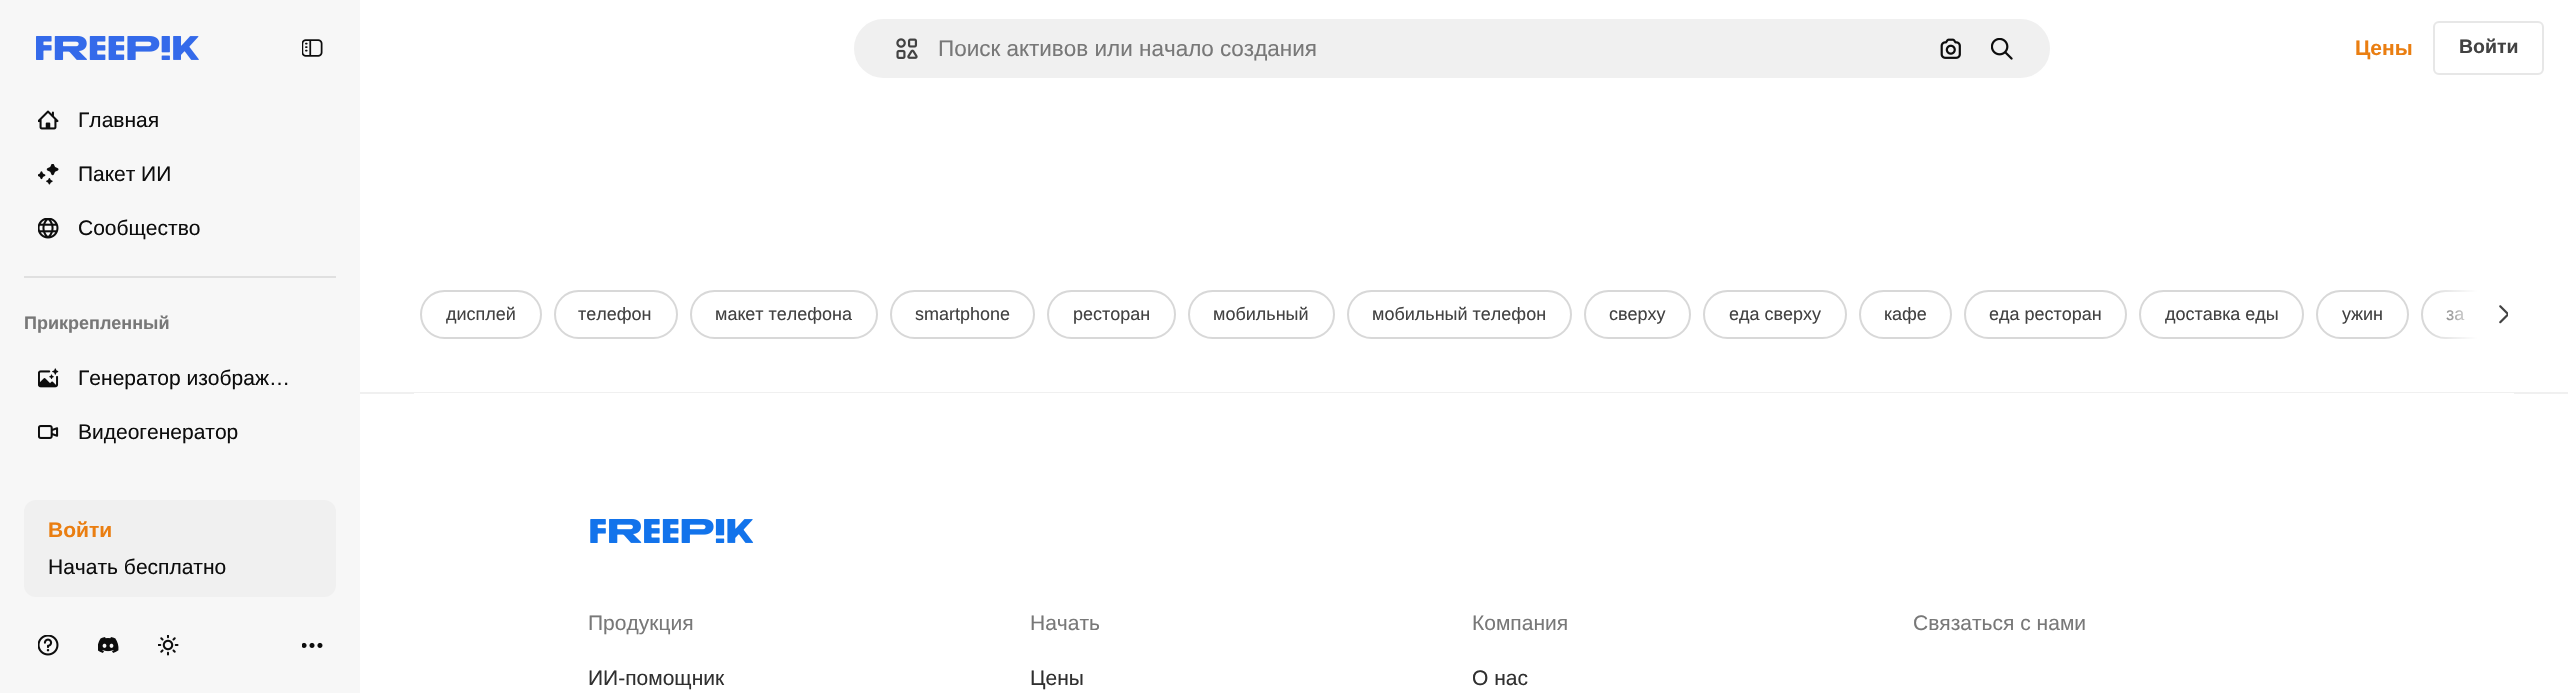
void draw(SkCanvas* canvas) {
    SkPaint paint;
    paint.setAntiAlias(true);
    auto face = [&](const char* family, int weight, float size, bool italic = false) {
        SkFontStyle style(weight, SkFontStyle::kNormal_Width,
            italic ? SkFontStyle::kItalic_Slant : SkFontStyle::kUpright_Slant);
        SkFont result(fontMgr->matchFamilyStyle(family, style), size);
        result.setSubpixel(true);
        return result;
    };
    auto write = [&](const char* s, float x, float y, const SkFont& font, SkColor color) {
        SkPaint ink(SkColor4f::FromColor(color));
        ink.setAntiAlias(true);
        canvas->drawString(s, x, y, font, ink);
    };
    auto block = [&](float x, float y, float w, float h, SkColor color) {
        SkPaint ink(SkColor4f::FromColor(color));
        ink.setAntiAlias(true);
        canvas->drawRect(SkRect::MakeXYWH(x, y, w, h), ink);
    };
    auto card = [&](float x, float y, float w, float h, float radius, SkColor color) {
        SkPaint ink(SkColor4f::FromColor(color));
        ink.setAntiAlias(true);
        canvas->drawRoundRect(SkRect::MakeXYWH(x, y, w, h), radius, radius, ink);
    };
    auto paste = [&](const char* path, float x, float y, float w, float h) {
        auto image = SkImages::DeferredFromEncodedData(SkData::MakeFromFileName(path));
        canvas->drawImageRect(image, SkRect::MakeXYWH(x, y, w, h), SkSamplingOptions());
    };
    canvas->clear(SK_ColorWHITE);
    block(0, 0, 360, 693, SkColorSetRGB(247, 247, 247));
    paste("pic1.png", 36, 36, 163, 24);
    paste("pic2.png", 302, 39, 21, 18);
    paste("pic3.png", 38, 110, 21, 20);
    auto kFont1 = face("Liberation Sans", 400, 21);
    write("Главная", 78, 127, kFont1, SkColorSetRGB(13, 13, 13));
    paste("pic4.png", 38, 164, 21, 21);
    write("Пакет ИИ", 78, 181, kFont1, SkColorSetRGB(13, 13, 13));
    paste("pic5.png", 38, 218, 21, 21);
    write("Сообщество", 78, 235, kFont1, SkColorSetRGB(13, 13, 13));
    block(24, 276, 312, 2, SkColorSetRGB(224, 224, 224));
    auto kFont2 = face("Liberation Sans", 700, 18);
    write("Прикрепленный", 24, 329, kFont2, SkColorSetRGB(120, 120, 120));
    paste("pic6.png", 38, 368, 21, 20);
    write("Генератор изображ…", 78, 385, kFont1, SkColorSetRGB(13, 13, 13));
    paste("pic7.png", 38, 425, 21, 14);
    write("Видеогенератор", 78, 439, kFont1, SkColorSetRGB(13, 13, 13));
    card(24, 500, 312, 97, 12, SkColorSetRGB(240, 240, 240));
    auto kFont3 = face("Liberation Sans", 700, 21);
    write("Войти", 48, 537, kFont3, SkColorSetRGB(234, 126, 17));
    write("Начать бесплатно", 48, 574, kFont1, SkColorSetRGB(13, 13, 13));
    paste("pic8.png", 38, 635, 21, 21);
    paste("pic9.png", 98, 637, 21, 16);
    paste("pic10.png", 158, 635, 21, 21);
    paste("pic11.png", 302, 642, 21, 6);
    paint.setColor(SkColorSetRGB(240, 240, 240));
    canvas->drawRoundRect(SkRect::MakeXYWH(853, 18, 1198, 61), 30.5f, 30.5f, paint);
    paint.setStyle(SkPaint::kStroke_Style);
    paint.setStrokeWidth(2);
    paint.setColor(SK_ColorWHITE);
    canvas->drawRoundRect(SkRect::MakeXYWH(853, 18, 1198, 61), 30.5f, 30.5f, paint);
    paste("pic12.png", 896, 38, 22, 21);
    auto kFont4 = face("Liberation Sans", 400, 22.5f);
    write("Поиск активов или начало создания", 938, 56, kFont4, SkColorSetRGB(120, 120, 120));
    paste("pic13.png", 1940, 38, 21, 21);
    paste("pic14.png", 1991, 38, 22, 22);
    write("Цены", 2355, 55, kFont3, SkColorSetRGB(234, 126, 17));
    paint.setColor(SkColorSetRGB(231, 231, 231));
    canvas->drawRoundRect(SkRect::MakeXYWH(2434, 22, 109, 52), 5, 5, paint);
    auto kFont5 = face("Liberation Sans", 700, 19.5f);
    write("Войти", 2459, 53, kFont5, SkColorSetRGB(66, 66, 66));
    paint.setColor(SkColorSetRGB(216, 216, 216));
    canvas->drawRoundRect(SkRect::MakeXYWH(421, 291, 120, 47), 23.5f, 23.5f, paint);
    auto kFont6 = face("Liberation Sans", 400, 18);
    write("дисплей", 446, 320, kFont6, SkColorSetRGB(66, 66, 66));
    canvas->drawRoundRect(SkRect::MakeXYWH(555, 291, 122, 47), 23.5f, 23.5f, paint);
    write("телефон", 578, 320, kFont6, SkColorSetRGB(66, 66, 66));
    canvas->drawRoundRect(SkRect::MakeXYWH(691, 291, 186, 47), 23.5f, 23.5f, paint);
    write("макет телефона", 715, 320, kFont6, SkColorSetRGB(66, 66, 66));
    canvas->drawRoundRect(SkRect::MakeXYWH(891, 291, 143, 47), 23.5f, 23.5f, paint);
    write("smartphone", 915, 320, kFont6, SkColorSetRGB(66, 66, 66));
    canvas->drawRoundRect(SkRect::MakeXYWH(1048, 291, 127, 47), 23.5f, 23.5f, paint);
    write("ресторан", 1073, 320, kFont6, SkColorSetRGB(66, 66, 66));
    canvas->drawRoundRect(SkRect::MakeXYWH(1189, 291, 145, 47), 23.5f, 23.5f, paint);
    write("мобильный", 1213, 320, kFont6, SkColorSetRGB(66, 66, 66));
    canvas->drawRoundRect(SkRect::MakeXYWH(1348, 291, 223, 47), 23.5f, 23.5f, paint);
    write("мобильный телефон", 1372, 320, kFont6, SkColorSetRGB(66, 66, 66));
    canvas->drawRoundRect(SkRect::MakeXYWH(1585, 291, 105, 47), 23.5f, 23.5f, paint);
    write("сверху", 1609, 320, kFont6, SkColorSetRGB(66, 66, 66));
    canvas->drawRoundRect(SkRect::MakeXYWH(1704, 291, 142, 47), 23.5f, 23.5f, paint);
    write("еда сверху", 1729, 320, kFont6, SkColorSetRGB(66, 66, 66));
    canvas->drawRoundRect(SkRect::MakeXYWH(1860, 291, 91, 47), 23.5f, 23.5f, paint);
    write("кафе", 1884, 320, kFont6, SkColorSetRGB(66, 66, 66));
    canvas->drawRoundRect(SkRect::MakeXYWH(1965, 291, 161, 47), 23.5f, 23.5f, paint);
    write("еда ресторан", 1989, 320, kFont6, SkColorSetRGB(66, 66, 66));
    canvas->drawRoundRect(SkRect::MakeXYWH(2140, 291, 163, 47), 23.5f, 23.5f, paint);
    write("доставка еды", 2165, 320, kFont6, SkColorSetRGB(66, 66, 66));
    canvas->drawRoundRect(SkRect::MakeXYWH(2317, 291, 91, 47), 23.5f, 23.5f, paint);
    write("ужин", 2342, 320, kFont6, SkColorSetRGB(66, 66, 66));
    canvas->save();
    canvas->clipRect(SkRect::MakeXYWH(420, 290, 2088, 49));
    canvas->drawRoundRect(SkRect::MakeXYWH(2422, 291, 112, 47), 23.5f, 23.5f, paint);
    canvas->restore();
    write("за", 2446, 320, kFont6, SkColorSetRGB(66, 66, 66));
    block(2478, 290, 30, 49, SK_ColorWHITE);
    paint.setStyle(SkPaint::kFill_Style);
    {
        const SkColor colors[] = {SK_ColorWHITE, SkColorSetARGB(0, 255, 255, 255)};
        const float stops[] = {0, 1};
        const SkPoint ends[] = {{2478, 314}, {2426, 314}};
        paint.setShader(SkGradientShader::MakeLinear(ends, colors, stops, 2, SkTileMode::kClamp));
        paint.setAlpha(255);
    }
    canvas->drawRect(SkRect::MakeXYWH(2429, 290, 49, 49), paint);
    paste("pic15.png", 2499, 305, 9, 19);
    block(360, 392, 2208, 2, SkColorSetRGB(240, 240, 240));
    block(414, 393, 2100, 1, SK_ColorWHITE);
    paste("pic16.png", 590, 519, 164, 24);
    write("Продукция", 588, 630, kFont1, SkColorSetRGB(120, 120, 120));
    write("ИИ-помощник", 588, 685, kFont1, SkColorSetRGB(48, 48, 48));
    write("Начать", 1030, 630, kFont1, SkColorSetRGB(120, 120, 120));
    write("Цены", 1030, 685, kFont1, SkColorSetRGB(48, 48, 48));
    write("Компания", 1472, 630, kFont1, SkColorSetRGB(120, 120, 120));
    write("О нас", 1472, 685, kFont1, SkColorSetRGB(48, 48, 48));
    write("Связаться с нами", 1913, 630, kFont1, SkColorSetRGB(120, 120, 120));
}
